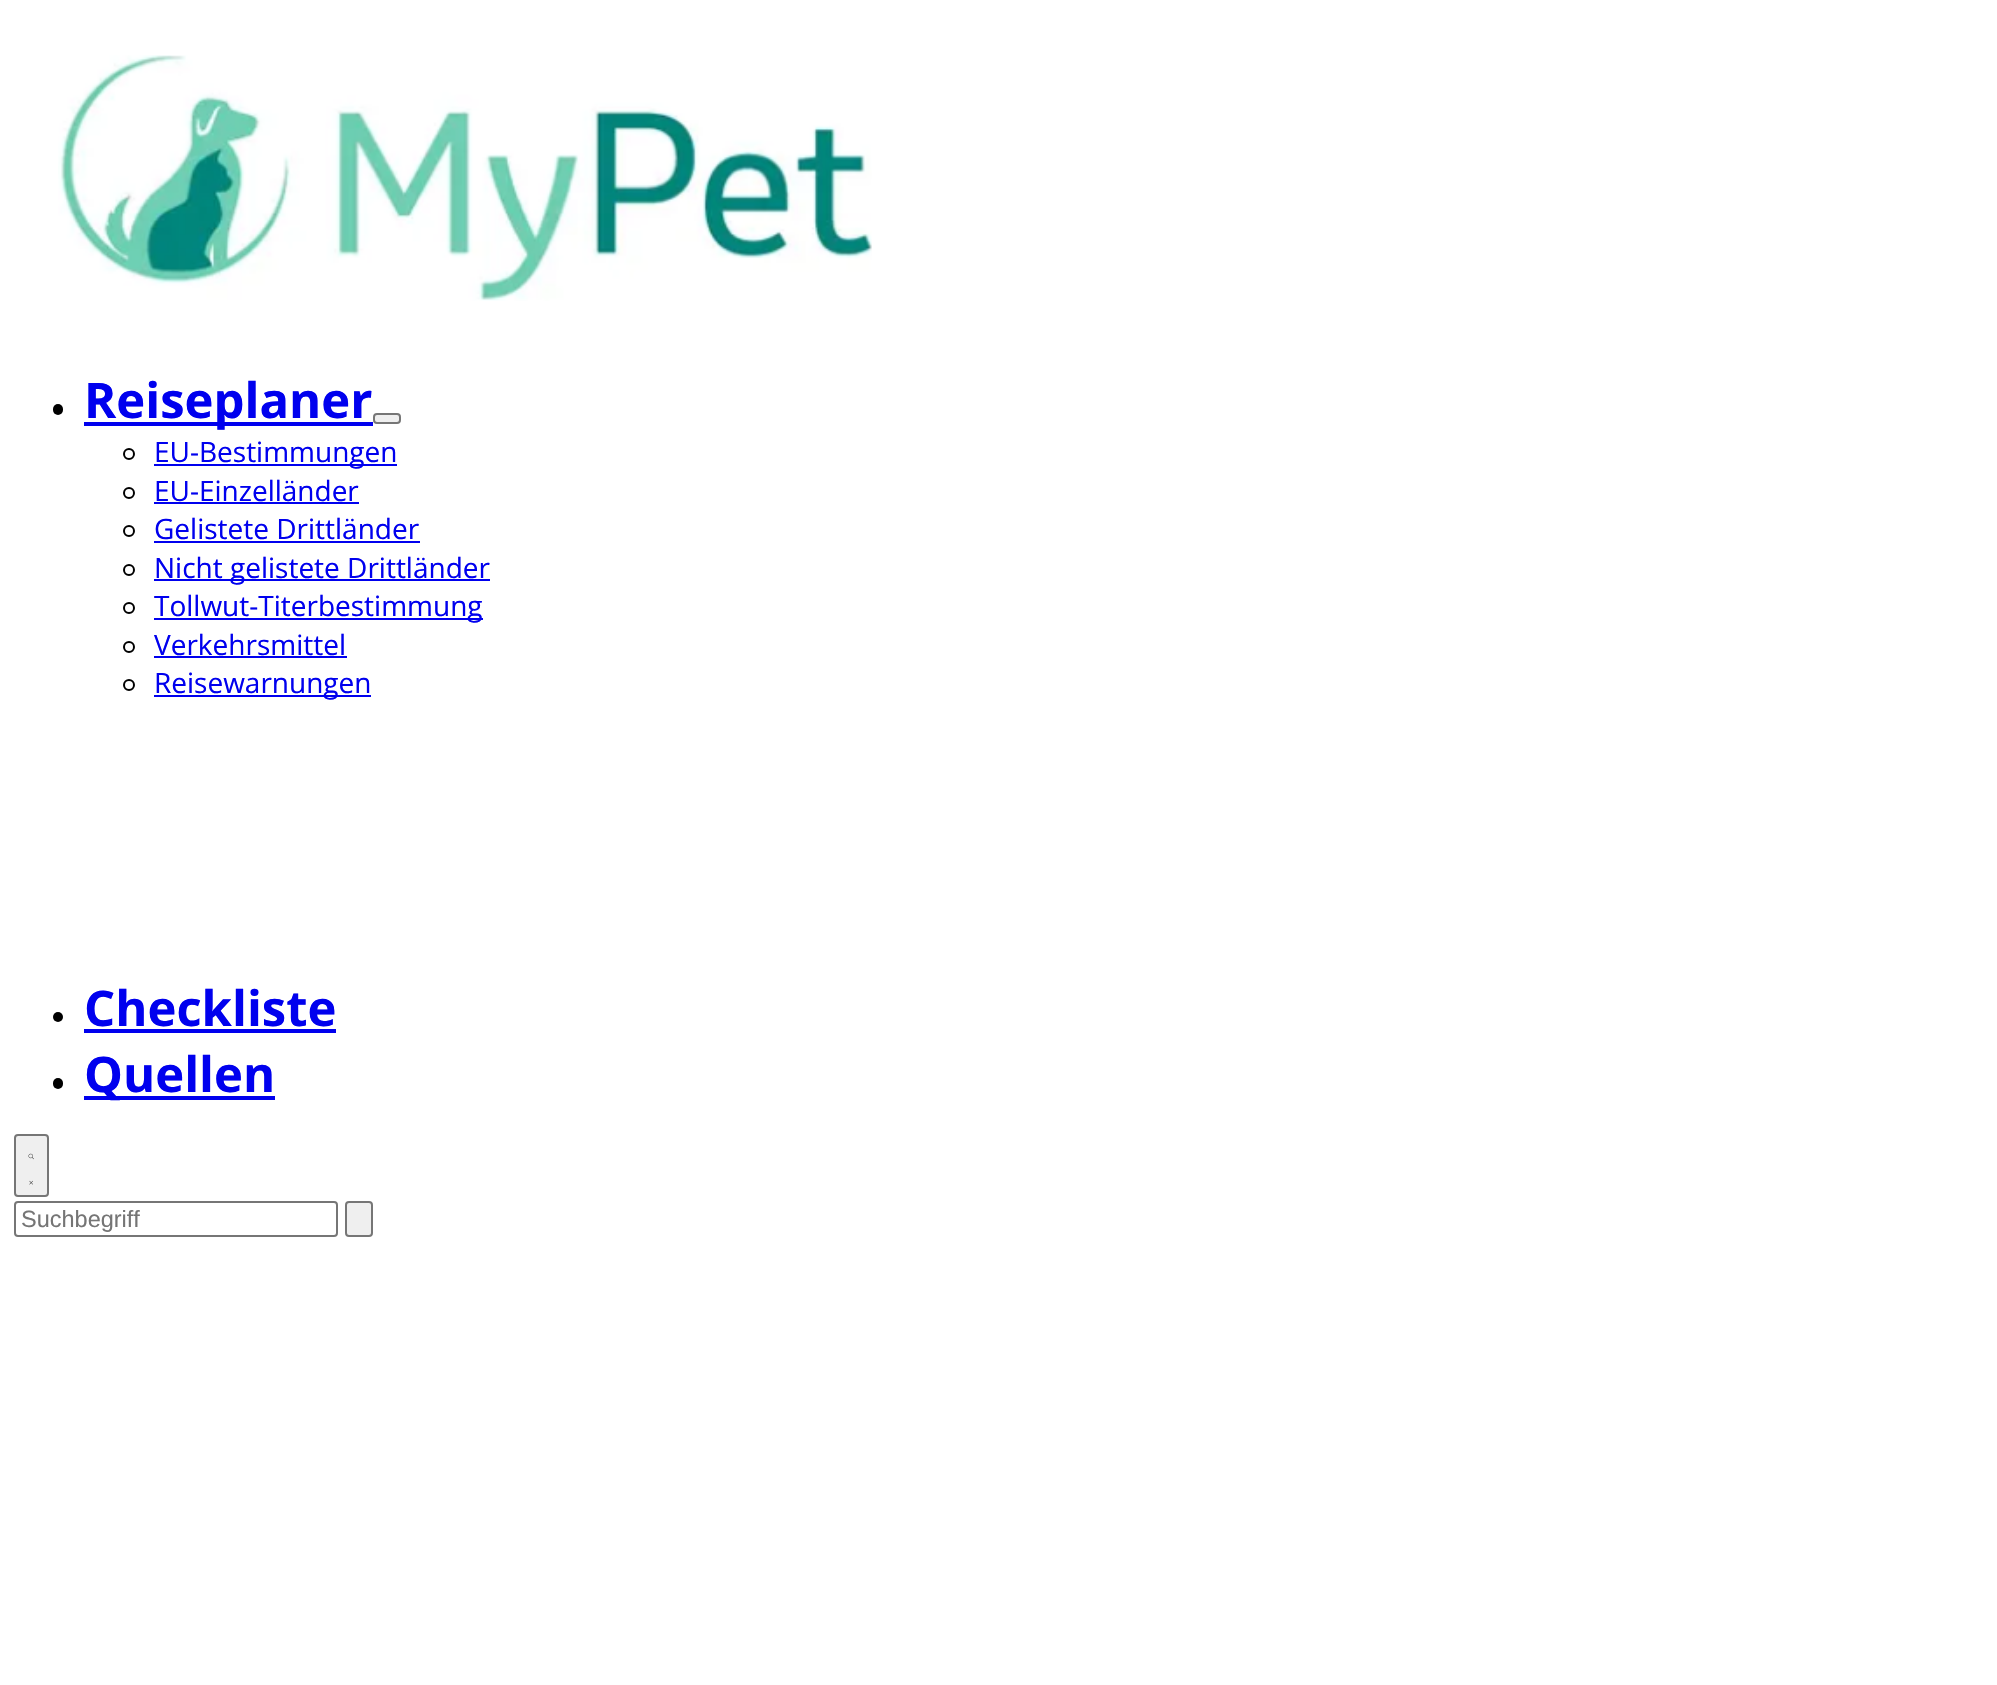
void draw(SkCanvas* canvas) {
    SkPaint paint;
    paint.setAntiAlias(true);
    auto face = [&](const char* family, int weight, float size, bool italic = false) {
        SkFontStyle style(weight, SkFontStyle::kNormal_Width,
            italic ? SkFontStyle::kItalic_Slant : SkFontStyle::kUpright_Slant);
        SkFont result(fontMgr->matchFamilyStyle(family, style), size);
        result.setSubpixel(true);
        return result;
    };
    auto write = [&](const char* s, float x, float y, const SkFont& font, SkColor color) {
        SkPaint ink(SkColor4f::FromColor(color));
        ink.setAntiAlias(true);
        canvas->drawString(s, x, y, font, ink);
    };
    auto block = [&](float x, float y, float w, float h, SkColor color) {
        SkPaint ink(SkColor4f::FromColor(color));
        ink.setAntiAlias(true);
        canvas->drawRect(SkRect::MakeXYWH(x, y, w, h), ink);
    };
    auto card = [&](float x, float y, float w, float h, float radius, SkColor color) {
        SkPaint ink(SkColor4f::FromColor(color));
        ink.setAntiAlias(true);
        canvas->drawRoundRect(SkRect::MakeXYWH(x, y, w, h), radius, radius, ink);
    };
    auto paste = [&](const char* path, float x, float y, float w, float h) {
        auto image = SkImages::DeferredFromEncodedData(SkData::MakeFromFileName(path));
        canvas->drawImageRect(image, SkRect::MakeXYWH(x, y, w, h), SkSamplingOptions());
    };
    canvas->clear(SK_ColorWHITE);
    paste("pic1.png", 58, 55, 814, 246);
    card(53, 404, 10, 11, 5, SK_ColorBLACK);
    block(84, 422, 289, 4, SkColorSetRGB(0, 0, 238));
    auto kFont1 = face("Open Sans", 700, 49);
    write("Reiseplaner", 84, 418, kFont1, SkColorSetRGB(0, 0, 238));
    paint.setColor(SkColorSetRGB(239, 239, 239));
    canvas->drawRoundRect(SkRect::MakeXYWH(374, 414, 26, 9), 3, 3, paint);
    paint.setStyle(SkPaint::kStroke_Style);
    paint.setStrokeWidth(2);
    paint.setColor(SkColorSetRGB(118, 118, 118));
    canvas->drawRoundRect(SkRect::MakeXYWH(374, 414, 26, 9), 3, 3, paint);
    paint.setColor(SK_ColorBLACK);
    canvas->drawCircle(129, 454, 5, paint);
    block(154, 464, 243, 2, SkColorSetRGB(0, 0, 238));
    auto kFont2 = face("Open Sans", 400, 28);
    write("EU-Bestimmungen", 154, 462, kFont2, SkColorSetRGB(0, 0, 238));
    canvas->drawCircle(129, 493, 5, paint);
    write("EU-Einzelländer", 154, 501, kFont2, SkColorSetRGB(0, 0, 238));
    block(154, 502, 205, 2, SkColorSetRGB(0, 0, 238));
    canvas->drawCircle(129, 531, 5, paint);
    write("Gelistete Drittländer", 154, 539, kFont2, SkColorSetRGB(0, 0, 238));
    block(154, 541, 266, 2, SkColorSetRGB(0, 0, 238));
    canvas->drawCircle(129, 570, 5, paint);
    block(154, 579, 336, 2, SkColorSetRGB(0, 0, 238));
    write("Nicht gelistete Drittländer", 154, 578, kFont2, SkColorSetRGB(0, 0, 238));
    canvas->drawCircle(129, 608, 5, paint);
    block(154, 618, 329, 2, SkColorSetRGB(0, 0, 238));
    write("Tollwut-Titerbestimmung", 154, 616, kFont2, SkColorSetRGB(0, 0, 238));
    canvas->drawCircle(129, 647, 5, paint);
    write("Verkehrsmittel", 154, 655, kFont2, SkColorSetRGB(0, 0, 238));
    block(154, 656, 193, 2, SkColorSetRGB(0, 0, 238));
    canvas->drawCircle(129, 685, 5, paint);
    block(154, 695, 217, 2, SkColorSetRGB(0, 0, 238));
    write("Reisewarnungen", 154, 693, kFont2, SkColorSetRGB(0, 0, 238));
    paint.setStyle(SkPaint::kFill_Style);
    canvas->drawCircle(58, 1017, 5, paint);
    write("Checkliste", 84, 1026, kFont1, SkColorSetRGB(0, 0, 238));
    block(84, 1029, 252, 4, SkColorSetRGB(0, 0, 238));
    card(53, 1078, 10, 11, 5, SK_ColorBLACK);
    block(84, 1096, 191, 4, SkColorSetRGB(0, 0, 238));
    write("Quellen", 84, 1092, kFont1, SkColorSetRGB(0, 0, 238));
    paint.setColor(SkColorSetRGB(239, 239, 239));
    canvas->drawRoundRect(SkRect::MakeXYWH(15, 1135, 33, 61), 3, 3, paint);
    paint.setStyle(SkPaint::kStroke_Style);
    paint.setColor(SkColorSetRGB(118, 118, 118));
    canvas->drawRoundRect(SkRect::MakeXYWH(15, 1135, 33, 61), 3, 3, paint);
    paste("pic2.png", 28, 1153, 6, 7);
    paste("pic3.png", 29, 1180, 4, 5);
    canvas->drawRoundRect(SkRect::MakeXYWH(15, 1202, 322, 34), 3, 3, paint);
    auto kFont3 = face("Liberation Sans", 400, 23.5f);
    write("Suchbegriff", 21, 1227, kFont3, SkColorSetRGB(117, 117, 117));
    paint.setStyle(SkPaint::kFill_Style);
    paint.setColor(SkColorSetRGB(239, 239, 239));
    canvas->drawRoundRect(SkRect::MakeXYWH(346, 1202, 26, 34), 3, 3, paint);
    paint.setStyle(SkPaint::kStroke_Style);
    paint.setColor(SkColorSetRGB(118, 118, 118));
    canvas->drawRoundRect(SkRect::MakeXYWH(346, 1202, 26, 34), 3, 3, paint);
}
